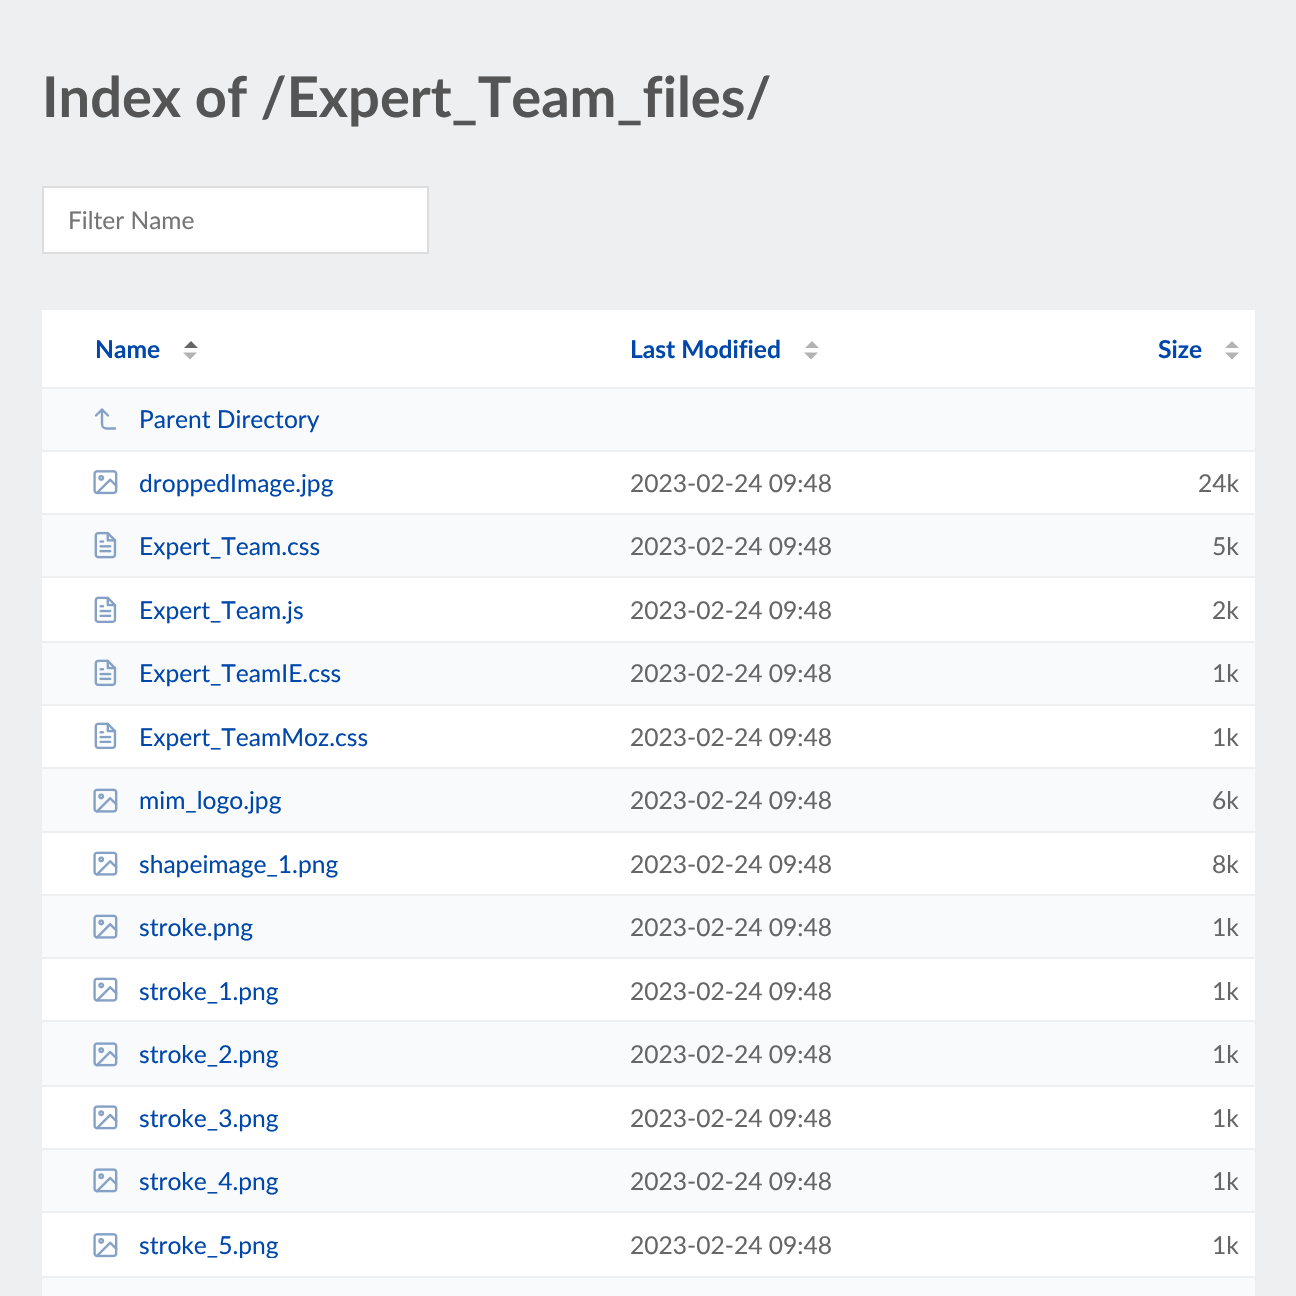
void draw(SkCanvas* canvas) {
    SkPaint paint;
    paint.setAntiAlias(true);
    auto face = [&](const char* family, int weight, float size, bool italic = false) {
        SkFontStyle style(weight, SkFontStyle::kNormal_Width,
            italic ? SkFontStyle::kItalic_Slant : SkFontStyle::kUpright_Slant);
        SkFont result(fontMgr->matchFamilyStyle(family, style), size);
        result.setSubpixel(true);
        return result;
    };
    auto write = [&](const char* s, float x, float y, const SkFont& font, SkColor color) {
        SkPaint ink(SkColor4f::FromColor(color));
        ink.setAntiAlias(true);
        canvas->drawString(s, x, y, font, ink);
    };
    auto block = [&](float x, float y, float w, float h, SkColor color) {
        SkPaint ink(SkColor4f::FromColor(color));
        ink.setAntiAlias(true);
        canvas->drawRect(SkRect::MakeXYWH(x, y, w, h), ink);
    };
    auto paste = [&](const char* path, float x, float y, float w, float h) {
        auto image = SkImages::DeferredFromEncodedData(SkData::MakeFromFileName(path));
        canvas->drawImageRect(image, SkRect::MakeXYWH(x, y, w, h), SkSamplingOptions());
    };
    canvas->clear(SkColorSetRGB(237, 239, 240));
    auto kFont1 = face("Lato", 700, 56);
    write("Index of /Expert_Team_files/", 42, 117, kFont1, SkColorSetRGB(85, 85, 85));
    paint.setColor(SK_ColorWHITE);
    canvas->drawRect(SkRect::MakeXYWH(43, 187, 385, 66), paint);
    paint.setStyle(SkPaint::kStroke_Style);
    paint.setStrokeWidth(2);
    paint.setColor(SkColorSetRGB(221, 221, 221));
    canvas->drawRect(SkRect::MakeXYWH(43, 187, 385, 66), paint);
    auto kFont2 = face("Lato", 400, 24.5f);
    write("Filter Name", 68, 229, kFont2, SkColorSetRGB(117, 117, 117));
    block(42, 310, 1213, 966, SK_ColorWHITE);
    auto kFont3 = face("Lato", 700, 24.6f);
    write("Name", 95, 358, kFont3, SkColorSetRGB(0, 71, 171));
    paint.setStyle(SkPaint::kFill_Style);
    paint.setColor(SkColorSetRGB(102, 102, 102));
    canvas->drawPath(SkPathBuilder().moveTo(198, 348).lineTo(184, 348).lineTo(191, 341).close().detach(), paint);
    paint.setColor(SkColorSetRGB(179, 179, 179));
    canvas->drawPath(SkPathBuilder().moveTo(183, 352.5f).lineTo(197, 352.5f).lineTo(190, 359.5f).close().detach(), paint);
    write("Last Modified", 630, 358, kFont3, SkColorSetRGB(0, 71, 171));
    canvas->drawPath(SkPathBuilder().moveTo(819, 348).lineTo(805, 348).lineTo(812, 341).close().moveTo(804, 352.5f).lineTo(818, 352.5f).lineTo(811, 359.5f).close().detach(), paint);
    write("Size", 1158, 358, kFont3, SkColorSetRGB(0, 71, 171));
    canvas->drawPath(SkPathBuilder().moveTo(1239, 348).lineTo(1225, 348).lineTo(1232, 341).close().moveTo(1225, 352.5f).lineTo(1239, 352.5f).lineTo(1232, 359.5f).close().detach(), paint);
    block(42, 389, 1213, 61, SkColorSetRGB(248, 250, 251));
    block(42, 387, 1213, 2, SkColorSetRGB(237, 239, 240));
    block(42, 450, 1213, 2, SkColorSetRGB(237, 239, 240));
    paint.setStyle(SkPaint::kStroke_Style);
    paint.setStrokeWidth(2.4f);
    paint.setStrokeCap(SkPaint::kRound_Cap);
    paint.setStrokeJoin(SkPaint::kRound_Join);
    paint.setColor(SkColorSetRGB(134, 161, 198));
    canvas->drawPath(SkPathBuilder().moveTo(108, 415.5f).lineTo(102, 409.5f).lineTo(96, 415.5f).moveTo(115, 428.5f).lineTo(106.5f, 428.5f).cubicTo(104, 428.5f, 102, 426.5f, 102, 424).lineTo(102, 409.5f).detach(), paint);
    auto kFont4 = face("Lato", 400, 24.6f);
    write("Parent Directory", 139, 428, kFont4, SkColorSetRGB(0, 71, 171));
    paste("pic1.png", 93, 470, 25, 25);
    write("droppedImage.jpg", 139, 492, kFont4, SkColorSetRGB(0, 71, 171));
    write("2023-02-24 09:48", 630, 492, kFont4, SkColorSetRGB(102, 102, 102));
    write("24k", 1198, 492, kFont4, SkColorSetRGB(102, 102, 102));
    block(42, 515, 1213, 61, SkColorSetRGB(248, 250, 251));
    block(42, 513, 1213, 2, SkColorSetRGB(237, 239, 240));
    block(42, 576, 1213, 2, SkColorSetRGB(237, 239, 240));
    paste("pic2.png", 94, 531, 23, 28);
    write("Expert_Team.css", 139, 555, kFont4, SkColorSetRGB(0, 71, 171));
    write("2023-02-24 09:48", 630, 555, kFont4, SkColorSetRGB(102, 102, 102));
    write("5k", 1212, 555, kFont4, SkColorSetRGB(102, 102, 102));
    paste("pic3.png", 94, 596, 23, 28);
    write("Expert_Team.js", 139, 619, kFont4, SkColorSetRGB(0, 71, 171));
    write("2023-02-24 09:48", 630, 619, kFont4, SkColorSetRGB(102, 102, 102));
    write("2k", 1212, 619, kFont4, SkColorSetRGB(102, 102, 102));
    block(42, 643, 1213, 61, SkColorSetRGB(248, 250, 251));
    block(42, 641, 1213, 2, SkColorSetRGB(237, 239, 240));
    block(42, 704, 1213, 2, SkColorSetRGB(237, 239, 240));
    paste("pic4.png", 94, 659, 23, 28);
    write("Expert_TeamIE.css", 139, 682, kFont4, SkColorSetRGB(0, 71, 171));
    write("2023-02-24 09:48", 630, 682, kFont4, SkColorSetRGB(102, 102, 102));
    write("1k", 1212, 682, kFont4, SkColorSetRGB(102, 102, 102));
    paste("pic3.png", 94, 722, 23, 28);
    write("Expert_TeamMoz.css", 139, 746, kFont4, SkColorSetRGB(0, 71, 171));
    write("2023-02-24 09:48", 630, 746, kFont4, SkColorSetRGB(102, 102, 102));
    write("1k", 1212, 746, kFont4, SkColorSetRGB(102, 102, 102));
    block(42, 769, 1213, 62, SkColorSetRGB(248, 250, 251));
    block(42, 767, 1213, 2, SkColorSetRGB(237, 239, 240));
    block(42, 831, 1213, 2, SkColorSetRGB(237, 239, 240));
    paste("pic5.png", 93, 788, 25, 25);
    write("mim_logo.jpg", 139, 809, kFont4, SkColorSetRGB(0, 71, 171));
    write("2023-02-24 09:48", 630, 809, kFont4, SkColorSetRGB(102, 102, 102));
    write("6k", 1212, 809, kFont4, SkColorSetRGB(102, 102, 102));
    paste("pic6.png", 93, 851, 25, 25);
    write("shapeimage_1.png", 139, 873, kFont4, SkColorSetRGB(0, 71, 171));
    write("2023-02-24 09:48", 630, 873, kFont4, SkColorSetRGB(102, 102, 102));
    write("8k", 1212, 873, kFont4, SkColorSetRGB(102, 102, 102));
    block(42, 896, 1213, 61, SkColorSetRGB(248, 250, 251));
    block(42, 894, 1213, 2, SkColorSetRGB(237, 239, 240));
    block(42, 957, 1213, 2, SkColorSetRGB(237, 239, 240));
    paste("pic5.png", 93, 914, 25, 25);
    write("stroke.png", 139, 936, kFont4, SkColorSetRGB(0, 71, 171));
    write("2023-02-24 09:48", 630, 936, kFont4, SkColorSetRGB(102, 102, 102));
    write("1k", 1212, 936, kFont4, SkColorSetRGB(102, 102, 102));
    paste("pic6.png", 93, 977, 25, 25);
    write("stroke_1.png", 139, 1000, kFont4, SkColorSetRGB(0, 71, 171));
    write("2023-02-24 09:48", 630, 1000, kFont4, SkColorSetRGB(102, 102, 102));
    write("1k", 1212, 1000, kFont4, SkColorSetRGB(102, 102, 102));
    block(42, 1022, 1213, 63, SkColorSetRGB(248, 250, 251));
    block(42, 1020, 1213, 2, SkColorSetRGB(237, 239, 240));
    block(42, 1085, 1213, 2, SkColorSetRGB(237, 239, 240));
    paste("pic7.png", 93, 1042, 25, 25);
    write("stroke_2.png", 139, 1063, kFont4, SkColorSetRGB(0, 71, 171));
    write("2023-02-24 09:48", 630, 1063, kFont4, SkColorSetRGB(102, 102, 102));
    write("1k", 1212, 1063, kFont4, SkColorSetRGB(102, 102, 102));
    paste("pic8.png", 93, 1105, 25, 25);
    write("stroke_3.png", 139, 1127, kFont4, SkColorSetRGB(0, 71, 171));
    write("2023-02-24 09:48", 630, 1127, kFont4, SkColorSetRGB(102, 102, 102));
    write("1k", 1212, 1127, kFont4, SkColorSetRGB(102, 102, 102));
    block(42, 1150, 1213, 61, SkColorSetRGB(248, 250, 251));
    block(42, 1148, 1213, 2, SkColorSetRGB(237, 239, 240));
    block(42, 1211, 1213, 2, SkColorSetRGB(237, 239, 240));
    paste("pic7.png", 93, 1168, 25, 25);
    write("stroke_4.png", 139, 1190, kFont4, SkColorSetRGB(0, 71, 171));
    write("2023-02-24 09:48", 630, 1190, kFont4, SkColorSetRGB(102, 102, 102));
    write("1k", 1212, 1190, kFont4, SkColorSetRGB(102, 102, 102));
    paste("pic1.png", 93, 1233, 25, 25);
    canvas->save();
    canvas->clipRect(SkRect::MakeXYWH(91, 1229, 508, 29));
    write("stroke_5.png", 139, 1254, kFont4, SkColorSetRGB(0, 71, 171));
    canvas->restore();
    write("2023-02-24 09:48", 630, 1254, kFont4, SkColorSetRGB(102, 102, 102));
    write("1k", 1212, 1254, kFont4, SkColorSetRGB(102, 102, 102));
    block(42, 1278, 1213, 18, SkColorSetRGB(248, 250, 251));
}
